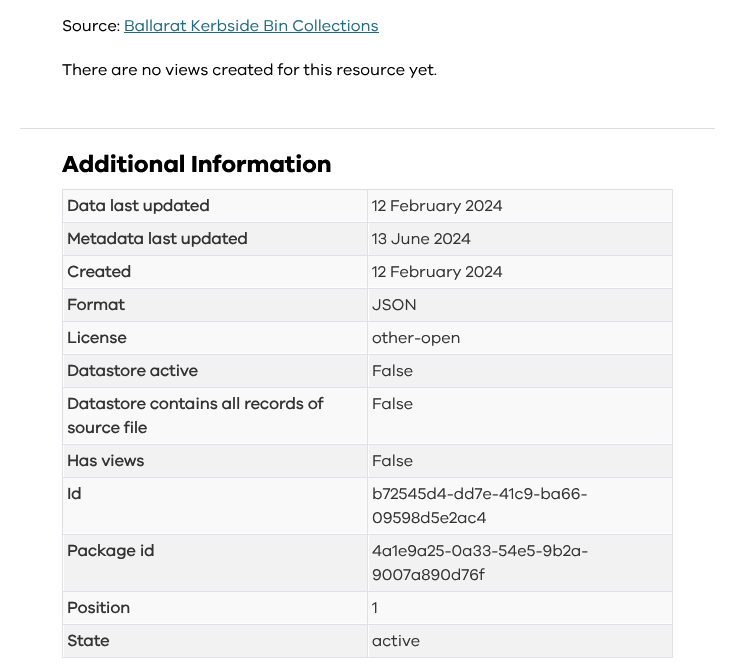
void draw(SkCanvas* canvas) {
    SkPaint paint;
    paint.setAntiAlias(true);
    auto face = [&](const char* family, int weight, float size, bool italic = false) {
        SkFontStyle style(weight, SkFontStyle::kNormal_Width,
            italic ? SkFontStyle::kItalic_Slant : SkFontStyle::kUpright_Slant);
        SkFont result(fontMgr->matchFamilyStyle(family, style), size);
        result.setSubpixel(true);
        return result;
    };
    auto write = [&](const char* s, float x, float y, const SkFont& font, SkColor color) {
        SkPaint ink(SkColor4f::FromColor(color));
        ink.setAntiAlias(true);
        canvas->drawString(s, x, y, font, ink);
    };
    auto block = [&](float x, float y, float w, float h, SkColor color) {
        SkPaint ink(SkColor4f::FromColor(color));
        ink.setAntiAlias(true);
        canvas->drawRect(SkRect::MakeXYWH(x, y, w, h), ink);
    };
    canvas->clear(SK_ColorWHITE);
    block(20, 128, 695, 1, SkColorSetRGB(221, 221, 221));
    auto kFont1 = face("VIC", 400, 16);
    write("Source:", 62, 31, kFont1, SK_ColorBLACK);
    write("Ballarat Kerbside Bin Collections", 124, 31, kFont1, SkColorSetRGB(32, 107, 130));
    block(124, 32, 255, 1, SkColorSetRGB(32, 107, 130));
    write("There are no views created for this resource yet.", 62, 75, kFont1, SK_ColorBLACK);
    auto kFont2 = face("VIC", 700, 24);
    write("Additional Information", 62, 172, kFont2, SK_ColorBLACK);
    block(62, 189, 611, 1, SkColorSetRGB(221, 221, 221));
    block(63, 190, 609, 31, SkColorSetRGB(249, 249, 249));
    block(62, 222, 611, 1, SkColorSetRGB(222, 226, 230));
    auto kFont3 = face("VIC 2", 700, 16);
    write("Data last updated", 67, 211, kFont3, SkColorSetRGB(51, 51, 51));
    write("12 February 2024", 372, 211, kFont1, SkColorSetRGB(51, 51, 51));
    block(62, 255, 611, 1, SkColorSetRGB(222, 226, 230));
    block(64, 223, 303, 32, SkColorSetRGB(242, 242, 242));
    write("Metadata last updated", 67, 244, kFont3, SkColorSetRGB(51, 51, 51));
    block(369, 223, 303, 32, SkColorSetRGB(242, 242, 242));
    write("13 June 2024", 372, 244, kFont1, SkColorSetRGB(51, 51, 51));
    block(63, 256, 609, 31, SkColorSetRGB(249, 249, 249));
    block(62, 288, 611, 1, SkColorSetRGB(222, 226, 230));
    write("Created", 67, 277, kFont3, SkColorSetRGB(51, 51, 51));
    write("12 February 2024", 372, 277, kFont1, SkColorSetRGB(51, 51, 51));
    block(62, 321, 611, 1, SkColorSetRGB(222, 226, 230));
    block(64, 289, 303, 32, SkColorSetRGB(242, 242, 242));
    write("Format", 67, 310, kFont3, SkColorSetRGB(51, 51, 51));
    block(369, 289, 303, 32, SkColorSetRGB(242, 242, 242));
    write("JSON", 372, 310, kFont1, SkColorSetRGB(51, 51, 51));
    block(63, 322, 609, 31, SkColorSetRGB(249, 249, 249));
    block(62, 354, 611, 1, SkColorSetRGB(222, 226, 230));
    write("License", 67, 343, kFont3, SkColorSetRGB(51, 51, 51));
    write("other-open", 372, 343, kFont1, SkColorSetRGB(51, 51, 51));
    block(62, 387, 611, 1, SkColorSetRGB(222, 226, 230));
    block(64, 355, 303, 32, SkColorSetRGB(242, 242, 242));
    write("Datastore active", 67, 376, kFont3, SkColorSetRGB(51, 51, 51));
    block(369, 355, 303, 32, SkColorSetRGB(242, 242, 242));
    write("False", 372, 376, kFont1, SkColorSetRGB(51, 51, 51));
    block(63, 388, 609, 55, SkColorSetRGB(249, 249, 249));
    block(62, 444, 611, 1, SkColorSetRGB(222, 226, 230));
    write("Datastore contains all records of", 67, 409, kFont3, SkColorSetRGB(51, 51, 51));
    write("source file", 67, 433, kFont3, SkColorSetRGB(51, 51, 51));
    write("False", 372, 409, kFont1, SkColorSetRGB(51, 51, 51));
    block(62, 477, 611, 1, SkColorSetRGB(222, 226, 230));
    block(64, 445, 303, 32, SkColorSetRGB(242, 242, 242));
    write("Has views", 67, 466, kFont3, SkColorSetRGB(51, 51, 51));
    block(369, 445, 303, 32, SkColorSetRGB(242, 242, 242));
    write("False", 372, 466, kFont1, SkColorSetRGB(51, 51, 51));
    block(63, 478, 609, 55, SkColorSetRGB(249, 249, 249));
    block(62, 534, 611, 1, SkColorSetRGB(222, 226, 230));
    write("Id", 67, 499, kFont3, SkColorSetRGB(51, 51, 51));
    write("b72545d4-dd7e-41c9-ba66-", 372, 499, kFont1, SkColorSetRGB(51, 51, 51));
    write("09598d5e2ac4", 372, 523, kFont1, SkColorSetRGB(51, 51, 51));
    block(62, 591, 611, 1, SkColorSetRGB(222, 226, 230));
    block(64, 535, 303, 56, SkColorSetRGB(242, 242, 242));
    write("Package id", 67, 556, kFont3, SkColorSetRGB(51, 51, 51));
    block(369, 535, 303, 56, SkColorSetRGB(242, 242, 242));
    write("4a1e9a25-0a33-54e5-9b2a-", 372, 556, kFont1, SkColorSetRGB(51, 51, 51));
    write("9007a890d76f", 372, 580, kFont1, SkColorSetRGB(51, 51, 51));
    block(63, 592, 609, 31, SkColorSetRGB(249, 249, 249));
    block(62, 624, 611, 1, SkColorSetRGB(222, 226, 230));
    write("Position", 67, 613, kFont3, SkColorSetRGB(51, 51, 51));
    write("1", 372, 613, kFont1, SkColorSetRGB(51, 51, 51));
    block(62, 657, 611, 1, SkColorSetRGB(222, 226, 230));
    block(64, 625, 303, 32, SkColorSetRGB(242, 242, 242));
    block(62, 189, 1, 469, SkColorSetRGB(222, 226, 230));
    write("State", 67, 646, kFont3, SkColorSetRGB(51, 51, 51));
    block(369, 625, 303, 32, SkColorSetRGB(242, 242, 242));
    block(672, 189, 1, 469, SkColorSetRGB(222, 226, 230));
    block(367, 189, 1, 469, SkColorSetRGB(222, 226, 230));
    write("active", 372, 646, kFont1, SkColorSetRGB(51, 51, 51));
}
